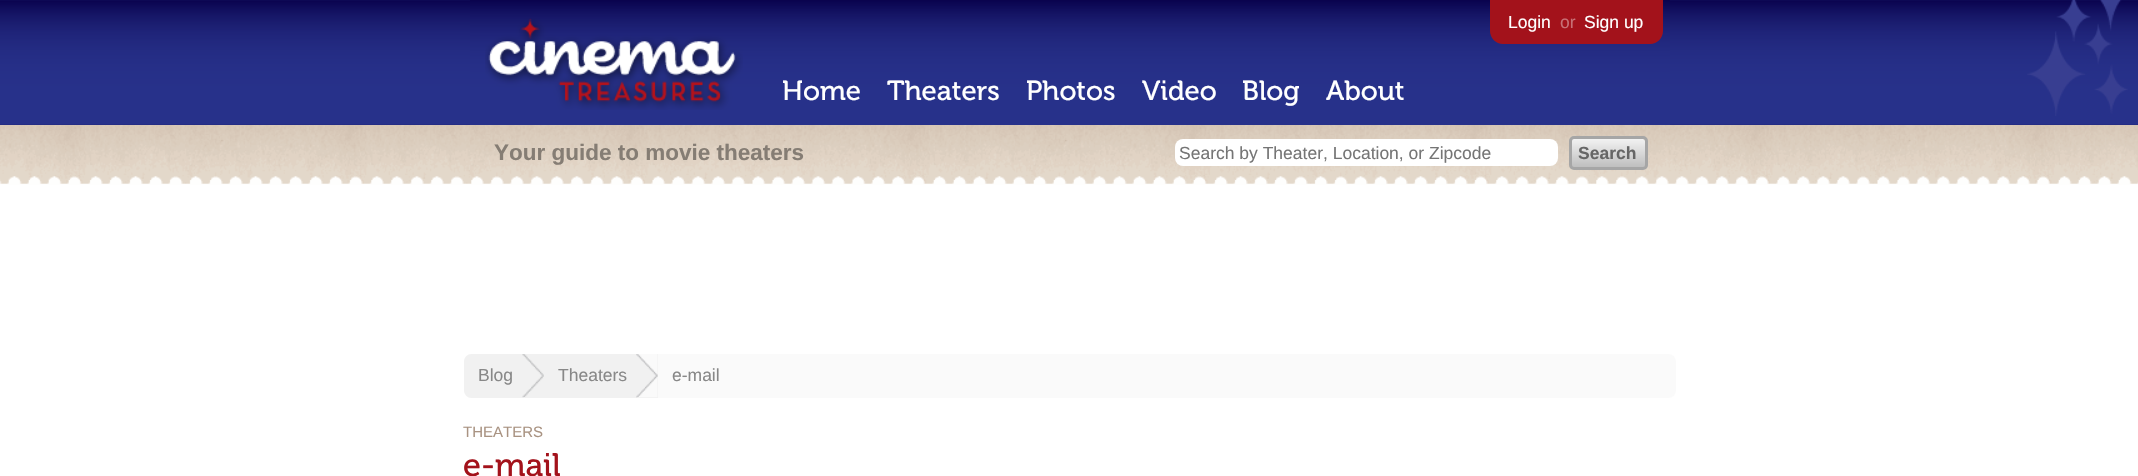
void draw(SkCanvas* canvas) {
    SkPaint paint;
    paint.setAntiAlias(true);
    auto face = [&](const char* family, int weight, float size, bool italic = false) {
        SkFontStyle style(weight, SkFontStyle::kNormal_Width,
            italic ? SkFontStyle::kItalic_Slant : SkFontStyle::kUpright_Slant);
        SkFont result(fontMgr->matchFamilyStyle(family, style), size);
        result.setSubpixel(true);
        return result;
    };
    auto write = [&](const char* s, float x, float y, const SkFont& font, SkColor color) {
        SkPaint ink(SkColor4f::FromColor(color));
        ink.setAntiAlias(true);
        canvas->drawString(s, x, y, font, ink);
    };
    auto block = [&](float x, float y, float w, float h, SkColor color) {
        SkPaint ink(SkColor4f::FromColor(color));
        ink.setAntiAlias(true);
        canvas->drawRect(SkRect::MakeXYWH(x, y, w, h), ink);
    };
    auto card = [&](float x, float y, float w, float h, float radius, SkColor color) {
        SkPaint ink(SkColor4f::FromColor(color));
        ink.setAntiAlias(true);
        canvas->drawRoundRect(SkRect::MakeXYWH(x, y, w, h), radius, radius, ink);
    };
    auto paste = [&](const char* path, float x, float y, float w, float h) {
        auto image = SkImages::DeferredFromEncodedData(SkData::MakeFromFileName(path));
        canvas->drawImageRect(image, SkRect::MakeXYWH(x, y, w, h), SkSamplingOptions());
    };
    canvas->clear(SK_ColorWHITE);
    paste("pic1.png", 0, 0, 2138, 125);
    paste("pic2.png", 470, 0, 1200, 125);
    paste("pic3.png", 485, 18, 258, 92);
    auto kFont1 = face("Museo", 400, 27.5f);
    write("Home", 782, 100, kFont1, SK_ColorWHITE);
    write("Theaters", 887, 100, kFont1, SK_ColorWHITE);
    write("Photos", 1026, 100, kFont1, SK_ColorWHITE);
    write("Video", 1142, 100, kFont1, SK_ColorWHITE);
    write("Blog", 1242, 100, kFont1, SK_ColorWHITE);
    write("About", 1326, 100, kFont1, SK_ColorWHITE);
    paint.setColor(SkColorSetRGB(163, 18, 27));
    canvas->drawPath(SkPathBuilder().moveTo(1490, 0).lineTo(1663, 0).lineTo(1663, 31).cubicTo(1663, 38, 1657, 44, 1650, 44).lineTo(1503, 44).cubicTo(1496, 44, 1490, 38, 1490, 31).close().detach(), paint);
    auto kFont2 = face("Liberation Sans", 400, 17.5f);
    write("Login", 1508, 28, kFont2, SK_ColorWHITE);
    write("or", 1560, 28, kFont2, SkColorSetRGB(200, 113, 118));
    write("Sign up", 1584, 28, kFont2, SK_ColorWHITE);
    paste("pic4.png", 2027, 0, 101, 116);
    paste("pic5.png", 0, 125, 2138, 60);
    auto kFont3 = face("Liberation Sans", 700, 22.5f);
    write("Your guide to movie theaters", 494, 160, kFont3, SkColorSetRGB(133, 125, 116));
    card(1175, 139, 383, 27, 8, SK_ColorWHITE);
    write("Search by Theater, Location, or Zipcode", 1179, 159, kFont2, SkColorSetRGB(117, 117, 117));
    {
        const SkColor colors[] = {SkColorSetRGB(242, 242, 242), SkColorSetRGB(189, 189, 189)};
        const float stops[] = {0, 1};
        const SkPoint ends[] = {{1608, 139}, {1608, 168}};
        paint.setShader(SkGradientShader::MakeLinear(ends, colors, stops, 2, SkTileMode::kClamp));
        paint.setAlpha(255);
    }
    canvas->drawRoundRect(SkRect::MakeXYWH(1571, 139, 74, 29), 2.5f, 2.5f, paint);
    paint.setStyle(SkPaint::kStroke_Style);
    paint.setStrokeWidth(3);
    paint.setShader(nullptr);
    paint.setColor(SkColorSetRGB(166, 166, 166));
    canvas->drawRoundRect(SkRect::MakeXYWH(1570.5f, 137.5f, 76, 31), 3.5f, 3.5f, paint);
    auto kFont4 = face("Liberation Sans", 700, 17.5f);
    write("Search", 1578, 159, kFont4, SkColorSetRGB(102, 102, 102));
    card(464, 354, 1212, 44, 8, SkColorSetRGB(250, 250, 250));
    paint.setStyle(SkPaint::kFill_Style);
    paint.setColor(SkColorSetRGB(241, 241, 241));
    canvas->drawPath(SkPathBuilder().moveTo(472, 354).lineTo(544, 354).lineTo(544, 398).lineTo(472, 398).cubicTo(467.5f, 398, 464, 394.5f, 464, 390).lineTo(464, 362).cubicTo(464, 357.5f, 467.5f, 354, 472, 354).close().detach(), paint);
    paste("pic6.png", 522, 354, 22, 44);
    write("Blog", 478, 381, kFont2, SkColorSetRGB(136, 136, 136));
    block(544, 354, 114, 44, SkColorSetRGB(241, 241, 241));
    paste("pic7.png", 636, 354, 22, 44);
    write("Theaters", 558, 381, kFont2, SkColorSetRGB(136, 136, 136));
    write("e-mail", 672, 381, kFont2, SkColorSetRGB(136, 136, 136));
    auto kFont5 = face("Liberation Sans", 400, 15);
    write("THEATERS", 463, 437, kFont5, SkColorSetRGB(169, 147, 130));
    auto kFont6 = face("Museo", 400, 32.5f);
    write("e-mail", 463, 476, kFont6, SkColorSetRGB(163, 18, 27));
}
